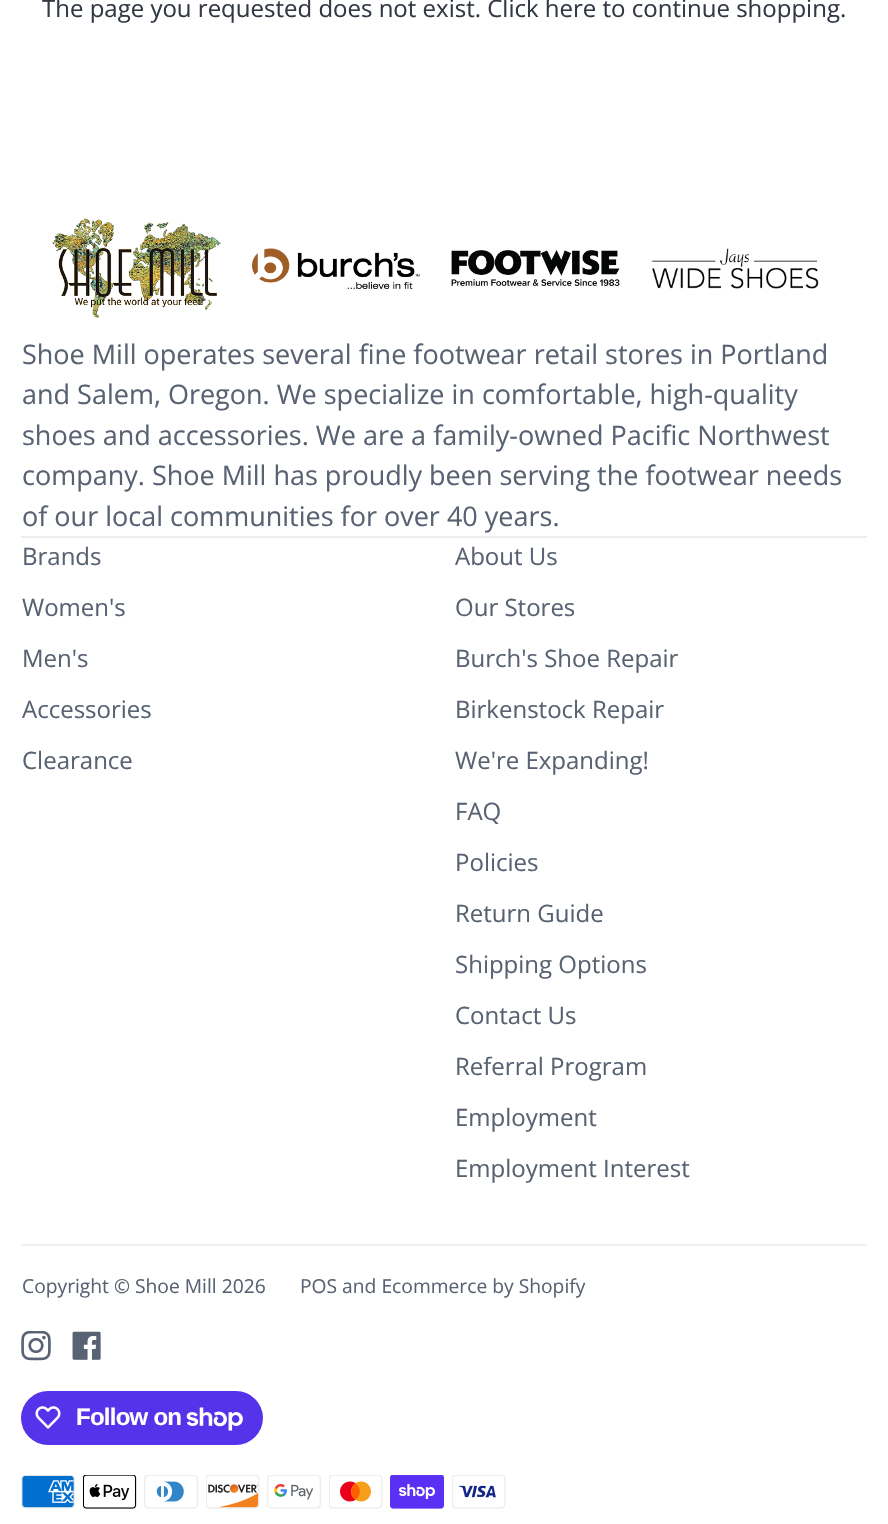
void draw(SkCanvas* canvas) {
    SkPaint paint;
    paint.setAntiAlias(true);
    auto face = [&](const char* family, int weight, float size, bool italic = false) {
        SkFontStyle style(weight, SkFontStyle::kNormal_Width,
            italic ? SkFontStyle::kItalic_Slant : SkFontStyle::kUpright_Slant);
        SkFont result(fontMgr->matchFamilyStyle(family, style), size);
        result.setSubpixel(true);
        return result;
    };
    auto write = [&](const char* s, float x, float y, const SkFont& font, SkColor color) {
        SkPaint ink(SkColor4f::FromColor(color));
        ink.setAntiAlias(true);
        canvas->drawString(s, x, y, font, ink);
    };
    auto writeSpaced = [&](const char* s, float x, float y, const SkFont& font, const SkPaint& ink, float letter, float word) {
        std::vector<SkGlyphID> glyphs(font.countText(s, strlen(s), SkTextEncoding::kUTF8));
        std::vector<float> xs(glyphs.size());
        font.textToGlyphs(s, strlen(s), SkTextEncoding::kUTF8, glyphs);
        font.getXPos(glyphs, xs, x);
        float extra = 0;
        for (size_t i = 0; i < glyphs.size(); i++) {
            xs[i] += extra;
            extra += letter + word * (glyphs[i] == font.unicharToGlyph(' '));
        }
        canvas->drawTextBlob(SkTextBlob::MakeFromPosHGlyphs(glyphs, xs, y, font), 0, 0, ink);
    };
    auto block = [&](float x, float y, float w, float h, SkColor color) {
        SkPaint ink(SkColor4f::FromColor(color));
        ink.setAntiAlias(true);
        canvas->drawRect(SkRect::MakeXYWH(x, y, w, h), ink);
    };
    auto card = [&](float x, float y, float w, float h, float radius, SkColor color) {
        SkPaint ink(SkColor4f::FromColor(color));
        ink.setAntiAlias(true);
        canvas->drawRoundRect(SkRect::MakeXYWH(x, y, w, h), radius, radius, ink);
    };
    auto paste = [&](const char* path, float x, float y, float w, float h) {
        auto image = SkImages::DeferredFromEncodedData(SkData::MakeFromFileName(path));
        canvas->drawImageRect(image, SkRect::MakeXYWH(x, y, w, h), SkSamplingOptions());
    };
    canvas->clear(SK_ColorWHITE);
    auto kFont1 = face("Open Sans", 400, 24);
    write("The page you requested does not exist. Click here to continue shopping.", 42, 17, kFont1, SkColorSetRGB(50, 57, 69));
    paste("pic1.png", 52, 218, 169, 100);
    paste("pic2.png", 252, 248, 168, 41);
    paste("pic3.png", 451, 250, 169, 36);
    paste("pic4.png", 651, 248, 168, 41);
    auto kFont2 = face("Open Sans", 400, 27);
    write("Shoe Mill operates several fine footwear retail stores in Portland", 22, 364, kFont2, SkColorSetRGB(88, 98, 114));
    write("and Salem, Oregon. We specialize in comfortable, high-quality", 22, 404, kFont2, SkColorSetRGB(88, 98, 114));
    write("shoes and accessories. We are a family-owned Pacific Northwest", 22, 445, kFont2, SkColorSetRGB(88, 98, 114));
    write("company. Shoe Mill has proudly been serving the footwear needs", 22, 485, kFont2, SkColorSetRGB(88, 98, 114));
    write("of our local communities for over 40 years.", 22, 526, kFont2, SkColorSetRGB(88, 98, 114));
    block(21, 536, 846, 2, SkColorSetRGB(237, 236, 238));
    write("Brands", 22, 565, kFont1, SkColorSetRGB(88, 98, 114));
    write("Women's", 22, 616, kFont1, SkColorSetRGB(88, 98, 114));
    write("Men's", 22, 667, kFont1, SkColorSetRGB(88, 98, 114));
    write("Accessories", 22, 718, kFont1, SkColorSetRGB(88, 98, 114));
    write("Clearance", 22, 769, kFont1, SkColorSetRGB(88, 98, 114));
    write("About Us", 455, 565, kFont1, SkColorSetRGB(88, 98, 114));
    write("Our Stores", 455, 616, kFont1, SkColorSetRGB(88, 98, 114));
    write("Burch's Shoe Repair", 455, 667, kFont1, SkColorSetRGB(88, 98, 114));
    write("Birkenstock Repair", 455, 718, kFont1, SkColorSetRGB(88, 98, 114));
    write("We're Expanding!", 455, 769, kFont1, SkColorSetRGB(88, 98, 114));
    write("FAQ", 455, 820, kFont1, SkColorSetRGB(88, 98, 114));
    write("Policies", 455, 871, kFont1, SkColorSetRGB(88, 98, 114));
    write("Return Guide", 455, 922, kFont1, SkColorSetRGB(88, 98, 114));
    write("Shipping Options", 455, 973, kFont1, SkColorSetRGB(88, 98, 114));
    write("Contact Us", 455, 1024, kFont1, SkColorSetRGB(88, 98, 114));
    write("Referral Program", 455, 1075, kFont1, SkColorSetRGB(88, 98, 114));
    write("Employment", 455, 1126, kFont1, SkColorSetRGB(88, 98, 114));
    write("Employment Interest", 455, 1177, kFont1, SkColorSetRGB(88, 98, 114));
    block(21, 1244, 846, 2, SkColorSetRGB(239, 239, 240));
    auto kFont3 = face("Open Sans", 400, 19.25f);
    write("Copyright © Shoe Mill 2026", 22, 1293, kFont3, SkColorSetRGB(88, 98, 114));
    write("POS and Ecommerce by Shopify", 300, 1293, kFont3, SkColorSetRGB(88, 98, 114));
    paste("pic5.png", 21, 1331, 30, 30);
    paste("pic6.png", 72, 1331, 29, 29);
    card(21, 1391, 242, 54, 27, SkColorSetRGB(84, 51, 235));
    paste("pic7.png", 35, 1406, 26, 23);
    auto kFont4 = face("Liberation Sans", 700, 24);
    paint.setColor(SK_ColorWHITE);
    writeSpaced("Follow on", 76, 1425, kFont4, paint, -0.75f, 0);
    paste("pic8.png", 186, 1407, 57, 24);
    paste("pic9.png", 21, 1475, 54, 34);
    paste("pic10.png", 83, 1475, 54, 34);
    paste("pic11.png", 144, 1475, 54, 34);
    paste("pic12.png", 206, 1475, 54, 34);
    paste("pic13.png", 267, 1475, 54, 34);
    paste("pic14.png", 329, 1475, 54, 34);
    paste("pic15.png", 390, 1475, 54, 34);
    paste("pic16.png", 452, 1475, 54, 34);
}
